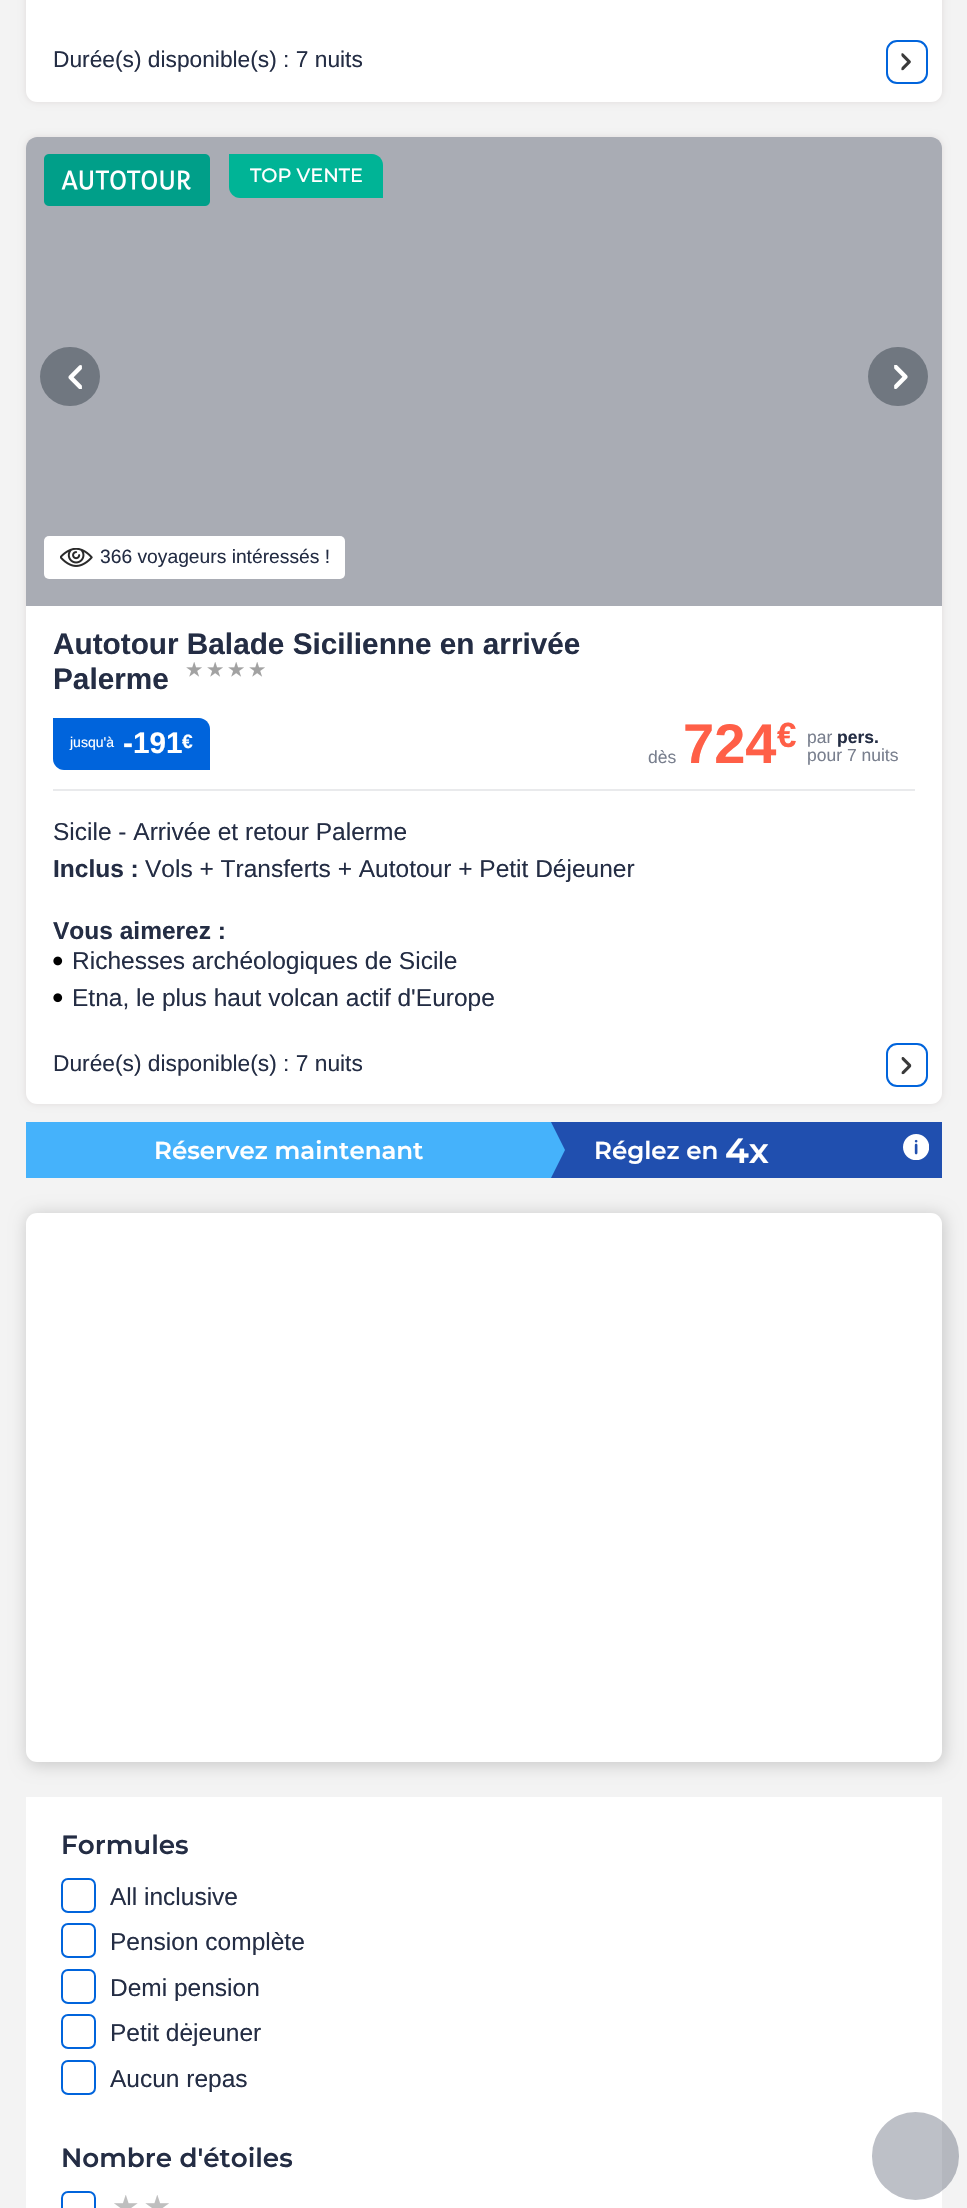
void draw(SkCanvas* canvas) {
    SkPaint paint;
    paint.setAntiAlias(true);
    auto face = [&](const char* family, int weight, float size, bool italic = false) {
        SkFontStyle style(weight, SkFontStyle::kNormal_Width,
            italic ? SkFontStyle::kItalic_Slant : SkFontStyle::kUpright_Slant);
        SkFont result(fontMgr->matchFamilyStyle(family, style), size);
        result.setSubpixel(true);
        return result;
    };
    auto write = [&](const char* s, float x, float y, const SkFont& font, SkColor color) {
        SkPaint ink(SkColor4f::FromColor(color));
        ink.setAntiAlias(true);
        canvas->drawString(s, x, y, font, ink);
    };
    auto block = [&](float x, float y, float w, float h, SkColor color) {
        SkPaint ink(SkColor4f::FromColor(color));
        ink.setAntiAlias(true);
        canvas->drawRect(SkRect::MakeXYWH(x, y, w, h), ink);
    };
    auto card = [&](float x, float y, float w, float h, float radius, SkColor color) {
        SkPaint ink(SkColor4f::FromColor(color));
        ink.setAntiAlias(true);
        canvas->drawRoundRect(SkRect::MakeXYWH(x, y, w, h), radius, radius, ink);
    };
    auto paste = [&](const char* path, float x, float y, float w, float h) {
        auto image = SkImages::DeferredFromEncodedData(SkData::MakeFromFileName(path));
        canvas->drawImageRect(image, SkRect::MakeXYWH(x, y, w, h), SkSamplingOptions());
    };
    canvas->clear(SkColorSetRGB(243, 243, 243));
    paint.setColor(SkColorSetRGB(223, 219, 219));
    paint.setMaskFilter(SkMaskFilter::MakeBlur(kNormal_SkBlurStyle, 3.5f));
    canvas->drawRoundRect(SkRect::MakeXYWH(26, -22, 916, 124), 11, 11, paint);
    paint.setMaskFilter(nullptr);
    card(26, -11, 916, 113, 11, SK_ColorWHITE);
    auto kFont1 = face("Liberation Sans", 400, 22.75f);
    write("Durée(s) disponible(s) : 7 nuits", 53, 67, kFont1, SkColorSetRGB(36, 45, 68));
    paint.setStyle(SkPaint::kStroke_Style);
    paint.setStrokeWidth(2);
    paint.setColor(SkColorSetRGB(0, 100, 220));
    canvas->drawRoundRect(SkRect::MakeXYWH(887, 41, 40, 42), 10, 10, paint);
    paste("pic1.png", 901, 53, 10, 18);
    paint.setStyle(SkPaint::kFill_Style);
    paint.setColor(SkColorSetRGB(223, 219, 219));
    paint.setMaskFilter(SkMaskFilter::MakeBlur(kNormal_SkBlurStyle, 3.5f));
    canvas->drawRoundRect(SkRect::MakeXYWH(26, 137, 916, 967), 11, 11, paint);
    paint.setMaskFilter(nullptr);
    card(26, 137, 916, 967, 11, SK_ColorWHITE);
    paint.setColor(SkColorSetRGB(169, 172, 180));
    canvas->drawPath(SkPathBuilder().moveTo(37, 137).lineTo(931, 137).cubicTo(937, 137, 942, 142, 942, 148).lineTo(942, 606).lineTo(26, 606).lineTo(26, 148).cubicTo(26, 142, 31, 137, 37, 137).close().detach(), paint);
    card(40, 347, 60, 59, 29.5f, SkColorSetRGB(112, 119, 128));
    paste("pic2.png", 68, 365, 14, 24);
    card(868, 347, 60, 59, 29.5f, SkColorSetRGB(112, 119, 128));
    paste("pic3.png", 894, 365, 14, 24);
    paste("pic4.png", 44, 154, 166, 52);
    paint.setColor(SkColorSetRGB(0, 180, 150));
    canvas->drawPath(SkPathBuilder().moveTo(229, 154).lineTo(372, 154).cubicTo(378, 154, 383, 159, 383, 165).lineTo(383, 198).lineTo(240, 198).cubicTo(234, 198, 229, 193, 229, 187).close().detach(), paint);
    auto kFont2 = face("Montserrat", 500, 19.25f);
    write("TOP VENTE", 250, 182, kFont2, SK_ColorWHITE);
    card(44, 536, 301, 43, 5, SK_ColorWHITE);
    paste("pic5.png", 60, 548, 33, 19);
    auto kFont3 = face("Liberation Sans", 400, 19.25f);
    write("366 voyageurs intéressés !", 100, 563, kFont3, SkColorSetRGB(36, 45, 68));
    auto kFont4 = face("Liberation Sans", 700, 29.75f);
    write("Autotour Balade Sicilienne en arrivée", 53, 654, kFont4, SkColorSetRGB(36, 45, 68));
    write("Palerme", 53, 689, kFont4, SkColorSetRGB(36, 45, 68));
    paste("pic6.png", 186, 662, 16, 15);
    paste("pic6.png", 207, 662, 16, 15);
    paste("pic6.png", 228, 662, 16, 15);
    paste("pic6.png", 249, 662, 16, 15);
    block(53, 789, 862, 2, SkColorSetRGB(233, 234, 236));
    paint.setColor(SkColorSetRGB(0, 100, 220));
    canvas->drawPath(SkPathBuilder().moveTo(53, 718).lineTo(199, 718).cubicTo(205, 718, 210, 723, 210, 729).lineTo(210, 770).lineTo(64, 770).cubicTo(58, 770, 53, 765, 53, 759).close().detach(), paint);
    auto kFont5 = face("Liberation Sans", 400, 14);
    write("jusqu'à", 70, 747, kFont5, SK_ColorWHITE);
    write("-191", 123, 753, kFont4, SK_ColorWHITE);
    auto kFont6 = face("Liberation Sans", 700, 19.25f);
    write("€", 182, 748, kFont6, SK_ColorWHITE);
    auto kFont7 = face("Liberation Sans", 400, 17.5f);
    write("dès", 648, 763, kFont7, SkColorSetRGB(121, 127, 142));
    auto kFont8 = face("Liberation Sans", 700, 56);
    write("724", 683, 763, kFont8, SkColorSetRGB(255, 95, 71));
    auto kFont9 = face("Liberation Sans", 700, 35);
    write("€", 777, 747, kFont9, SkColorSetRGB(255, 95, 71));
    write("par", 807, 743, kFont7, SkColorSetRGB(121, 127, 142));
    auto kFont10 = face("Liberation Sans", 700, 17.5f);
    write("pers.", 837, 743, kFont10, SkColorSetRGB(36, 45, 68));
    write("pour 7 nuits", 807, 761, kFont7, SkColorSetRGB(121, 127, 142));
    auto kFont11 = face("Liberation Sans", 400, 24.5f);
    write("Sicile - Arrivée et retour Palerme", 53, 840, kFont11, SkColorSetRGB(36, 45, 68));
    auto kFont12 = face("Liberation Sans", 700, 24.5f);
    write("Inclus :", 53, 877, kFont12, SkColorSetRGB(36, 45, 68));
    write("Vols + Transferts + Autotour + Petit Déjeuner", 145, 877, kFont11, SkColorSetRGB(36, 45, 68));
    write("Vous aimerez :", 53, 939, kFont12, SkColorSetRGB(36, 45, 68));
    paste("pic7.png", 53, 956, 10, 10);
    write("Richesses archéologiques de Sicile", 72, 969, kFont11, SkColorSetRGB(36, 45, 68));
    paste("pic8.png", 53, 993, 10, 10);
    write("Etna, le plus haut volcan actif d'Europe", 72, 1006, kFont11, SkColorSetRGB(36, 45, 68));
    write("Durée(s) disponible(s) : 7 nuits", 53, 1071, kFont1, SkColorSetRGB(36, 45, 68));
    paint.setStyle(SkPaint::kStroke_Style);
    canvas->drawRoundRect(SkRect::MakeXYWH(887, 1044, 40, 42), 10, 10, paint);
    paste("pic9.png", 901, 1057, 11, 18);
    block(26, 1122, 539, 56, SkColorSetRGB(69, 178, 251));
    auto kFont13 = face("Montserrat", 600, 24.5f);
    write("Réservez maintenant", 154, 1159, kFont13, SK_ColorWHITE);
    paint.setStyle(SkPaint::kFill_Style);
    paint.setColor(SkColorSetRGB(32, 79, 175));
    canvas->drawPath(SkPathBuilder().moveTo(551, 1122).lineTo(593, 1122).lineTo(565, 1150).close().detach(), paint);
    block(565, 1122, 28, 56, SkColorSetRGB(32, 79, 175));
    canvas->drawPath(SkPathBuilder().moveTo(593, 1178).lineTo(551, 1178).lineTo(565, 1150).close().detach(), paint);
    block(593, 1122, 349, 56, SkColorSetRGB(32, 79, 175));
    write("Réglez en", 594, 1159, kFont13, SK_ColorWHITE);
    auto kFont14 = face("Montserrat", 600, 35);
    write("4x", 725, 1163, kFont14, SK_ColorWHITE);
    paste("pic10.png", 903, 1134, 26, 26);
    paint.setColor(SkColorSetRGB(204, 204, 204));
    paint.setMaskFilter(SkMaskFilter::MakeBlur(kNormal_SkBlurStyle, 8));
    canvas->drawRoundRect(SkRect::MakeXYWH(26, 1213, 919, 553), 12, 12, paint);
    paint.setMaskFilter(nullptr);
    card(26, 1213, 916, 549, 11, SK_ColorWHITE);
    block(26, 1797, 916, 411, SK_ColorWHITE);
    auto kFont15 = face("Montserrat", 600, 26.25f);
    write("Formules", 61, 1854, kFont15, SkColorSetRGB(36, 45, 68));
    paint.setStyle(SkPaint::kStroke_Style);
    paint.setColor(SkColorSetRGB(0, 100, 220));
    canvas->drawRoundRect(SkRect::MakeXYWH(62, 1879, 33, 33), 6, 6, paint);
    write("All inclusive", 110, 1905, kFont11, SkColorSetRGB(36, 45, 68));
    canvas->drawRoundRect(SkRect::MakeXYWH(62, 1924, 33, 33), 6, 6, paint);
    write("Pension complète", 110, 1950, kFont11, SkColorSetRGB(36, 45, 68));
    canvas->drawRoundRect(SkRect::MakeXYWH(62, 1970, 33, 33), 6, 6, paint);
    write("Demi pension", 110, 1996, kFont11, SkColorSetRGB(36, 45, 68));
    canvas->drawRoundRect(SkRect::MakeXYWH(62, 2015, 33, 33), 6, 6, paint);
    write("Petit dėjeuner", 110, 2041, kFont11, SkColorSetRGB(36, 45, 68));
    canvas->drawRoundRect(SkRect::MakeXYWH(62, 2061, 33, 33), 6, 6, paint);
    write("Aucun repas", 110, 2087, kFont11, SkColorSetRGB(36, 45, 68));
    write("Nombre d'étoiles", 61, 2167, kFont15, SkColorSetRGB(36, 45, 68));
    canvas->drawRoundRect(SkRect::MakeXYWH(62, 2192, 33, 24), 6, 6, paint);
    paste("pic11.png", 114, 2195, 24, 13);
    paste("pic12.png", 145, 2195, 24, 13);
    card(872, 2112, 87, 88, 43.5f, SkColorSetARGB(77, 36, 45, 68));
}
